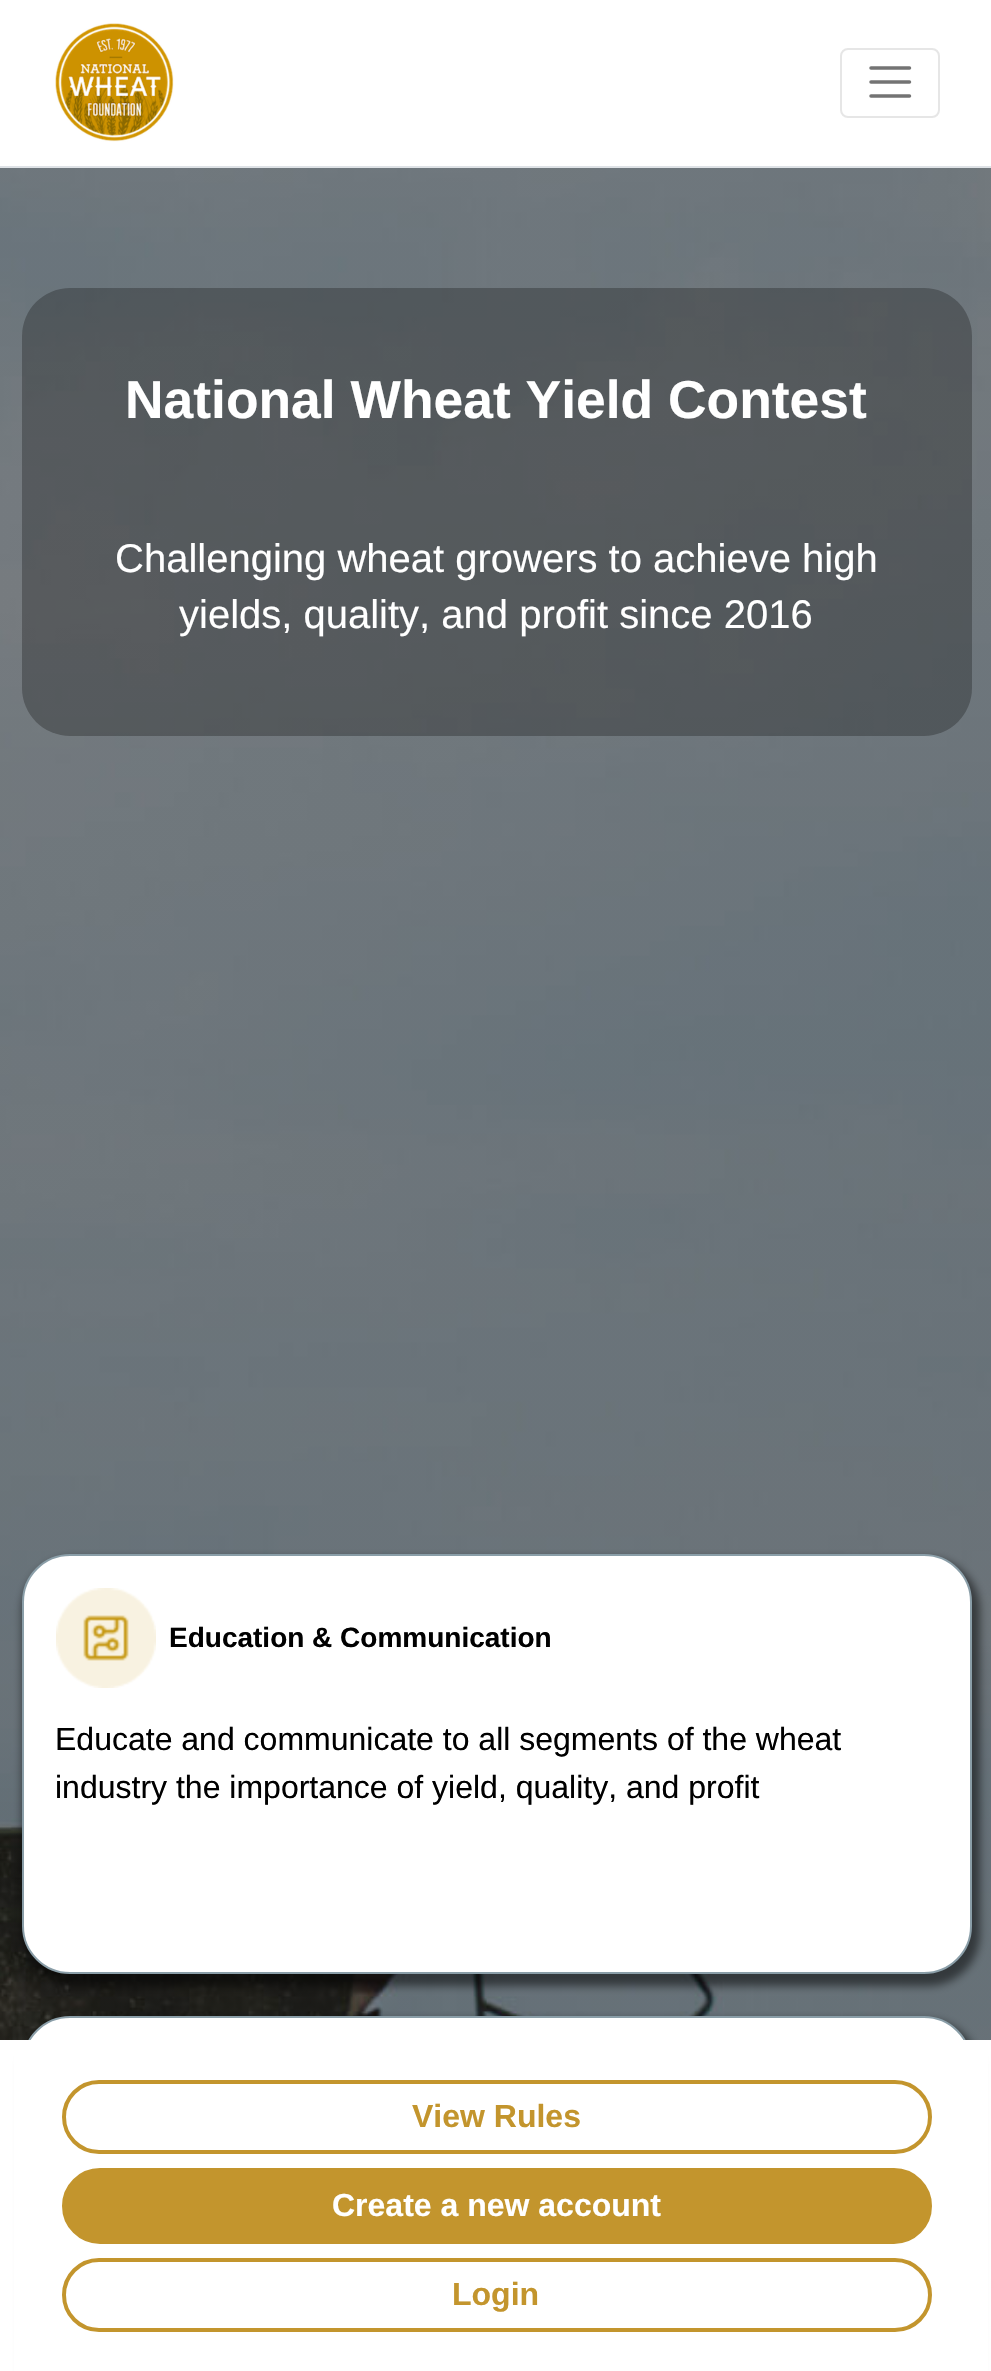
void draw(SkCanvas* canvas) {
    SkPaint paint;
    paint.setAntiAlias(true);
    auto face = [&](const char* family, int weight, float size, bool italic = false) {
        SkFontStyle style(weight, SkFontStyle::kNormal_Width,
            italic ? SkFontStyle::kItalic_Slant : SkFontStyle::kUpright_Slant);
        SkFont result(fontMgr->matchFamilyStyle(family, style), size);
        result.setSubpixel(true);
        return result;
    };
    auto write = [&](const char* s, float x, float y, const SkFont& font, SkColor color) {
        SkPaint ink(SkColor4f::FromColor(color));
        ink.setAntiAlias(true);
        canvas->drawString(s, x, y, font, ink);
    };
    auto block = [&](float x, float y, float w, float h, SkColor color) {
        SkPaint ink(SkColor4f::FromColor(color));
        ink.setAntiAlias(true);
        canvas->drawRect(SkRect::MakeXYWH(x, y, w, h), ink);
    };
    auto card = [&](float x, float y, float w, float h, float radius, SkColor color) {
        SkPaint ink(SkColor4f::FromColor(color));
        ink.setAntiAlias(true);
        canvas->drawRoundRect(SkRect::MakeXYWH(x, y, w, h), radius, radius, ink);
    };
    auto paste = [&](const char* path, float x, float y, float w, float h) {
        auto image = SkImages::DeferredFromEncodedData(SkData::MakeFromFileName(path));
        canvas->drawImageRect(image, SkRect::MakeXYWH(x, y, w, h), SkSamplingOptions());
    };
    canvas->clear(SK_ColorWHITE);
    block(0, 166, 991, 2, SkColorSetRGB(222, 226, 230));
    paste("pic1.png", 55, 23, 119, 119);
    paint.setStyle(SkPaint::kStroke_Style);
    paint.setStrokeWidth(2);
    paint.setColor(SkColorSetRGB(230, 230, 230));
    canvas->drawRoundRect(SkRect::MakeXYWH(841, 49, 98, 68), 7, 7, paint);
    paint.setStrokeWidth(3.5f);
    paint.setStrokeCap(SkPaint::kRound_Cap);
    paint.setColor(SkColorSetRGB(115, 115, 115));
    canvas->drawPath(SkPathBuilder().moveTo(871, 68).lineTo(909.5f, 68).moveTo(871, 82).lineTo(909.5f, 82).moveTo(871, 96).lineTo(909.5f, 96).detach(), paint);
    paste("pic2.png", 0, 168, 991, 1872);
    card(22, 288, 950, 448, 48, SkColorSetARGB(77, 16, 15, 17));
    auto kFont1 = face("Liberation Sans", 700, 53.4f);
    write("National Wheat Yield Contest", 125, 418, kFont1, SK_ColorWHITE);
    auto kFont2 = face("Liberation Sans", 400, 40);
    write("Challenging wheat growers to achieve high", 115, 572, kFont2, SK_ColorWHITE);
    write("yields, quality, and profit since 2016", 179, 628, kFont2, SK_ColorWHITE);
    paint.setStyle(SkPaint::kFill_Style);
    paint.setColor(SkColorSetARGB(128, 0, 0, 0));
    paint.setMaskFilter(SkMaskFilter::MakeBlur(kNormal_SkBlurStyle, 4));
    canvas->drawRoundRect(SkRect::MakeXYWH(22, 1558, 958, 428), 52, 52, paint);
    paint.setMaskFilter(nullptr);
    paint.setColor(SK_ColorWHITE);
    canvas->drawRoundRect(SkRect::MakeXYWH(23, 1555, 948, 418), 47, 47, paint);
    paint.setStyle(SkPaint::kStroke_Style);
    paint.setStrokeWidth(2);
    paint.setStrokeCap(SkPaint::kButt_Cap);
    paint.setColor(SkColorSetRGB(138, 158, 168));
    canvas->drawRoundRect(SkRect::MakeXYWH(23, 1555, 948, 418), 47, 47, paint);
    paste("pic3.png", 56, 1588, 100, 100);
    auto kFont3 = face("Liberation Sans", 700, 28);
    write("Education & Communication", 169, 1647, kFont3, SK_ColorBLACK);
    auto kFont4 = face("Liberation Sans", 400, 32);
    write("Educate and communicate to all segments of the wheat", 55, 1750, kFont4, SK_ColorBLACK);
    write("industry the importance of yield, quality, and profit", 55, 1798, kFont4, SK_ColorBLACK);
    paint.setStyle(SkPaint::kFill_Style);
    paint.setColor(SkColorSetARGB(128, 0, 0, 0));
    paint.setMaskFilter(SkMaskFilter::MakeBlur(kNormal_SkBlurStyle, 4));
    canvas->drawRoundRect(SkRect::MakeXYWH(22, 2020, 958, 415), 52, 52, paint);
    paint.setMaskFilter(nullptr);
    paint.setColor(SK_ColorWHITE);
    canvas->drawRoundRect(SkRect::MakeXYWH(23, 2017, 948, 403), 47, 47, paint);
    paint.setStyle(SkPaint::kStroke_Style);
    paint.setColor(SkColorSetRGB(138, 158, 168));
    canvas->drawRoundRect(SkRect::MakeXYWH(23, 2017, 948, 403), 47, 47, paint);
    block(14, 2040, 974, 331, SK_ColorWHITE);
    paint.setStrokeWidth(4);
    paint.setColor(SkColorSetRGB(195, 149, 45));
    canvas->drawRoundRect(SkRect::MakeXYWH(64, 2082, 866, 70), 35, 35, paint);
    auto kFont5 = face("Liberation Sans", 700, 32);
    write("View Rules", 412, 2127, kFont5, SkColorSetRGB(195, 149, 45));
    paint.setStyle(SkPaint::kFill_Style);
    canvas->drawRoundRect(SkRect::MakeXYWH(64, 2170, 866, 72), 36, 36, paint);
    paint.setStyle(SkPaint::kStroke_Style);
    canvas->drawRoundRect(SkRect::MakeXYWH(64, 2170, 866, 72), 36, 36, paint);
    write("Create a new account", 332, 2216, kFont5, SK_ColorWHITE);
    canvas->drawRoundRect(SkRect::MakeXYWH(64, 2260, 866, 70), 35, 35, paint);
    write("Login", 452, 2305, kFont5, SkColorSetRGB(195, 149, 45));
}
